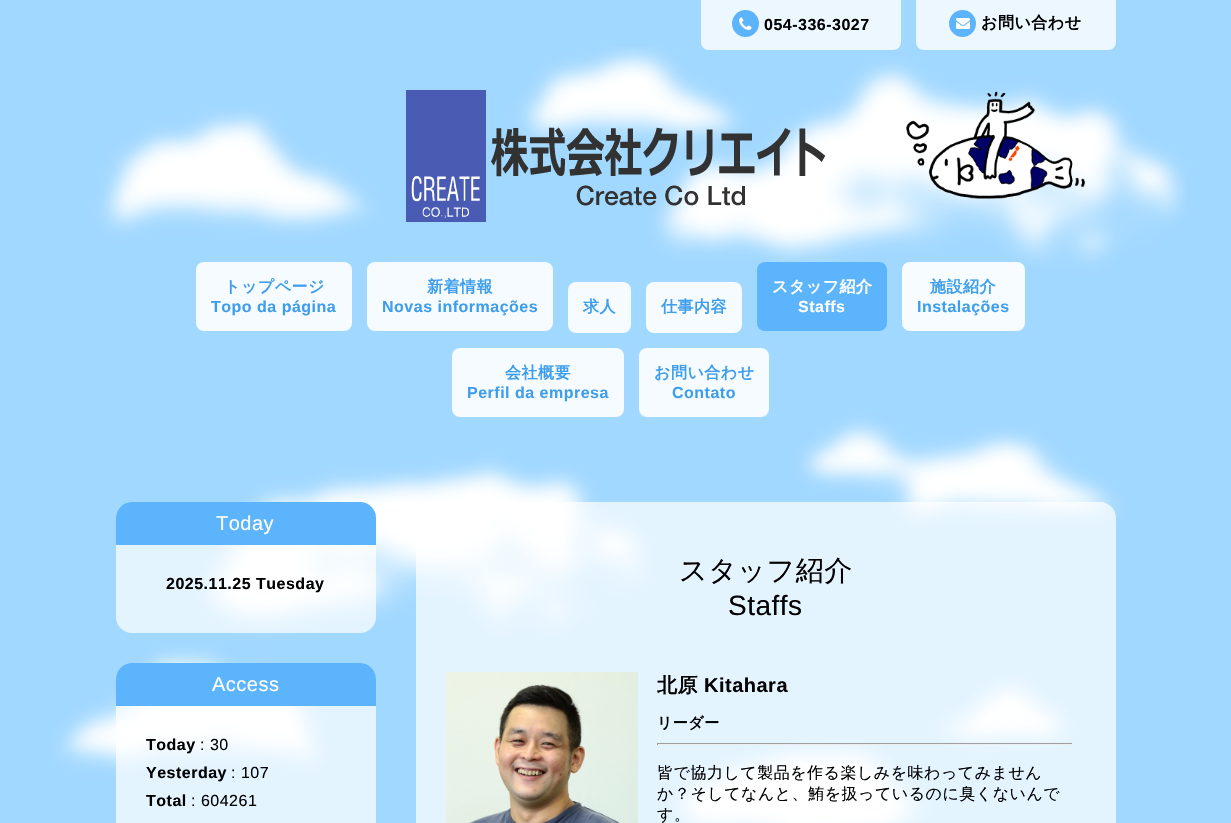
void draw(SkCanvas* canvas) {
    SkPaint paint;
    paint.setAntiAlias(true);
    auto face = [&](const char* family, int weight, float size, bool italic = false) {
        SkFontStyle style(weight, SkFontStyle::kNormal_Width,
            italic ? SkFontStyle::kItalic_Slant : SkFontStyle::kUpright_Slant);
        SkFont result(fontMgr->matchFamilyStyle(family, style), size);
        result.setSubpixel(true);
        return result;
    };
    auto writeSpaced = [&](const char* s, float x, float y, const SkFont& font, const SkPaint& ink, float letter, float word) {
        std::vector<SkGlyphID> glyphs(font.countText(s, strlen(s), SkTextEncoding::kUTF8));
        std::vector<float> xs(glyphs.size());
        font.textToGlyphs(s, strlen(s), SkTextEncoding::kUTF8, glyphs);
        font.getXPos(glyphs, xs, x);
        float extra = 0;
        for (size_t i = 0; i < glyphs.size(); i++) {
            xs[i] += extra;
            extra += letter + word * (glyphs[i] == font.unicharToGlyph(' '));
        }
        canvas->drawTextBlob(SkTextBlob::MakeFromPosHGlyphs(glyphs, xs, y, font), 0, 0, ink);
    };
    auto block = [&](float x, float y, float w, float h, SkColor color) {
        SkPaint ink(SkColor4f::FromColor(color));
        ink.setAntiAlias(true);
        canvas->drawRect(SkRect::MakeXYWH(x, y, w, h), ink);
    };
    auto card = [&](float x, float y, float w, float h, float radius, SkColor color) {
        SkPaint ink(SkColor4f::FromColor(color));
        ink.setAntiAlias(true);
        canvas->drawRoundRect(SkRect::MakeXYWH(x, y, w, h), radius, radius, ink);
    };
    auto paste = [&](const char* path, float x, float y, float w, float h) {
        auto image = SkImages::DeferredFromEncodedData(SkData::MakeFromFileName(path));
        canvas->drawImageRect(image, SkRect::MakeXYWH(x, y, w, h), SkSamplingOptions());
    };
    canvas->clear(SkColorSetRGB(161, 216, 255));
    paste("pic1.png", 52, 46, 1136, 777);
    paint.setColor(SkColorSetRGB(236, 247, 255));
    canvas->drawPath(SkPathBuilder().moveTo(701, 0).lineTo(901, 0).lineTo(901, 42).cubicTo(901, 46.5f, 897.5f, 50, 893, 50).lineTo(709, 50).cubicTo(704.5f, 50, 701, 46.5f, 701, 42).close().detach(), paint);
    paint.setColor(SkColorSetRGB(92, 180, 253));
    canvas->drawCircle(745.5f, 23.5f, 13.5f, paint);
    paste("pic2.png", 739, 17, 13, 13);
    auto kFont1 = face("Liberation Sans", 700, 16);
    paint.setColor(SK_ColorBLACK);
    writeSpaced("054-336-3027", 764, 30, kFont1, paint, 0.5f, 0);
    paint.setColor(SkColorSetRGB(236, 247, 255));
    canvas->drawPath(SkPathBuilder().moveTo(916, 0).lineTo(1116, 0).lineTo(1116, 42).cubicTo(1116, 46.5f, 1112.5f, 50, 1108, 50).lineTo(924, 50).cubicTo(919.5f, 50, 916, 46.5f, 916, 42).close().detach(), paint);
    paint.setColor(SkColorSetRGB(92, 180, 253));
    canvas->drawCircle(962.5f, 23.5f, 13.5f, paint);
    paste("pic3.png", 956, 18, 14, 11);
    auto kFont2 = face("WenQuanYi Zen Hei", 700, 16);
    paint.setColor(SK_ColorBLACK);
    writeSpaced("お問い合わせ", 981, 28, kFont2, paint, 0.5f, 0);
    paste("pic4.png", 406, 90, 420, 132);
    paste("pic5.png", 906, 91, 179, 108);
    card(196, 262, 156, 69, 8, SkColorSetRGB(246, 251, 255));
    paint.setColor(SkColorSetRGB(62, 158, 237));
    writeSpaced("トップページ", 224, 292, kFont2, paint, 0.5f, 0);
    writeSpaced("Topo da página", 211, 312, kFont1, paint, 0.5f, 0);
    card(367, 262, 186, 69, 8, SkColorSetRGB(246, 251, 255));
    writeSpaced("新着情報", 427, 292, kFont2, paint, 0.5f, 0);
    writeSpaced("Novas informações", 382, 312, kFont1, paint, 0.5f, 0);
    card(568, 282, 63, 51, 8, SkColorSetRGB(246, 251, 255));
    writeSpaced("求人", 583, 312, kFont2, paint, 0.5f, 0);
    card(646, 282, 96, 51, 8, SkColorSetRGB(246, 251, 255));
    writeSpaced("仕事内容", 661, 312, kFont2, paint, 0.5f, 0);
    card(757, 262, 130, 69, 8, SkColorSetRGB(92, 180, 253));
    paint.setColor(SK_ColorWHITE);
    writeSpaced("スタッフ紹介", 772, 292, kFont2, paint, 0.5f, 0);
    writeSpaced("Staffs", 798, 312, kFont1, paint, 0.5f, 0);
    card(902, 262, 123, 69, 8, SkColorSetARGB(230, 255, 255, 255));
    paint.setColor(SkColorSetRGB(62, 158, 237));
    writeSpaced("施設紹介", 930, 292, kFont2, paint, 0.5f, 0);
    writeSpaced("Instalações", 917, 312, kFont1, paint, 0.5f, 0);
    card(452, 348, 172, 69, 8, SkColorSetRGB(246, 251, 255));
    writeSpaced("会社概要", 505, 378, kFont2, paint, 0.5f, 0);
    writeSpaced("Perfil da empresa", 467, 398, kFont1, paint, 0.5f, 0);
    card(639, 348, 130, 69, 8, SkColorSetRGB(246, 251, 255));
    writeSpaced("お問い合わせ", 654, 378, kFont2, paint, 0.5f, 0);
    writeSpaced("Contato", 672, 398, kFont1, paint, 0.5f, 0);
    card(116, 502, 260, 131, 16, SkColorSetARGB(179, 255, 255, 255));
    paint.setColor(SkColorSetRGB(92, 180, 253));
    canvas->drawPath(SkPathBuilder().moveTo(132, 502).lineTo(360, 502).cubicTo(369, 502, 376, 509, 376, 518).lineTo(376, 545).lineTo(116, 545).lineTo(116, 518).cubicTo(116, 509, 123, 502, 132, 502).close().detach(), paint);
    auto kFont3 = face("Liberation Sans", 400, 20);
    paint.setColor(SK_ColorWHITE);
    writeSpaced("Today", 216, 530, kFont3, paint, 0.5f, 0);
    paint.setColor(SK_ColorBLACK);
    writeSpaced("2025.11.25 Tuesday", 166, 589, kFont1, paint, 0.5f, 0);
    card(116, 663, 260, 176, 16, SkColorSetARGB(179, 255, 255, 255));
    paint.setColor(SkColorSetRGB(92, 180, 253));
    canvas->drawPath(SkPathBuilder().moveTo(132, 663).lineTo(360, 663).cubicTo(369, 663, 376, 670, 376, 679).lineTo(376, 706).lineTo(116, 706).lineTo(116, 679).cubicTo(116, 670, 123, 663, 132, 663).close().detach(), paint);
    paint.setColor(SK_ColorWHITE);
    writeSpaced("Access", 212, 691, kFont3, paint, 0.5f, 0);
    paint.setColor(SK_ColorBLACK);
    writeSpaced("Today", 146, 750, kFont1, paint, 0.5f, 0);
    auto kFont4 = face("Liberation Sans", 400, 16);
    writeSpaced(": 30", 200, 750, kFont4, paint, 0.5f, 0);
    writeSpaced("Yesterday", 146, 778, kFont1, paint, 0.5f, 0);
    writeSpaced(": 107", 231, 778, kFont4, paint, 0.5f, 0);
    writeSpaced("Total", 146, 806, kFont1, paint, 0.5f, 0);
    writeSpaced(": 604261", 191, 806, kFont4, paint, 0.5f, 0);
    card(416, 502, 700, 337, 16, SkColorSetARGB(179, 255, 255, 255));
    auto kFont5 = face("WenQuanYi Zen Hei", 500, 28);
    writeSpaced("スタッフ紹介", 679, 580, kFont5, paint, 0.5f, 0);
    auto kFont6 = face("Liberation Sans", 400, 28);
    writeSpaced("Staffs", 728, 615, kFont6, paint, 0.5f, 0);
    paste("pic6.png", 446, 672, 192, 151);
    auto kFont7 = face("WenQuanYi Zen Hei", 700, 20);
    writeSpaced("北原", 657, 692, kFont7, paint, 0.5f, 0);
    auto kFont8 = face("Liberation Sans", 700, 20);
    writeSpaced("Kitahara", 704, 692, kFont8, paint, 0.5f, 0);
    auto kFont9 = face("WenQuanYi Zen Hei", 700, 15);
    writeSpaced("リーダー", 657, 728, kFont9, paint, 0.5f, 0);
    block(657, 743, 416, 1, SkColorSetRGB(159, 159, 159));
    block(1072, 743, 1, 2, SkColorSetRGB(238, 238, 238));
    block(657, 744, 416, 1, SkColorSetRGB(238, 238, 238));
    block(657, 743, 1, 2, SkColorSetRGB(159, 159, 159));
    auto kFont10 = face("WenQuanYi Zen Hei", 500, 16);
    writeSpaced("皆で協力して製品を作る楽しみを味わってみません", 657, 778, kFont10, paint, 0.5f, 0);
    writeSpaced("か？そしてなんと、鮪を扱っているのに臭くないんで", 657, 799, kFont10, paint, 0.5f, 0);
    writeSpaced("す。", 657, 820, kFont10, paint, 0.5f, 0);
}
